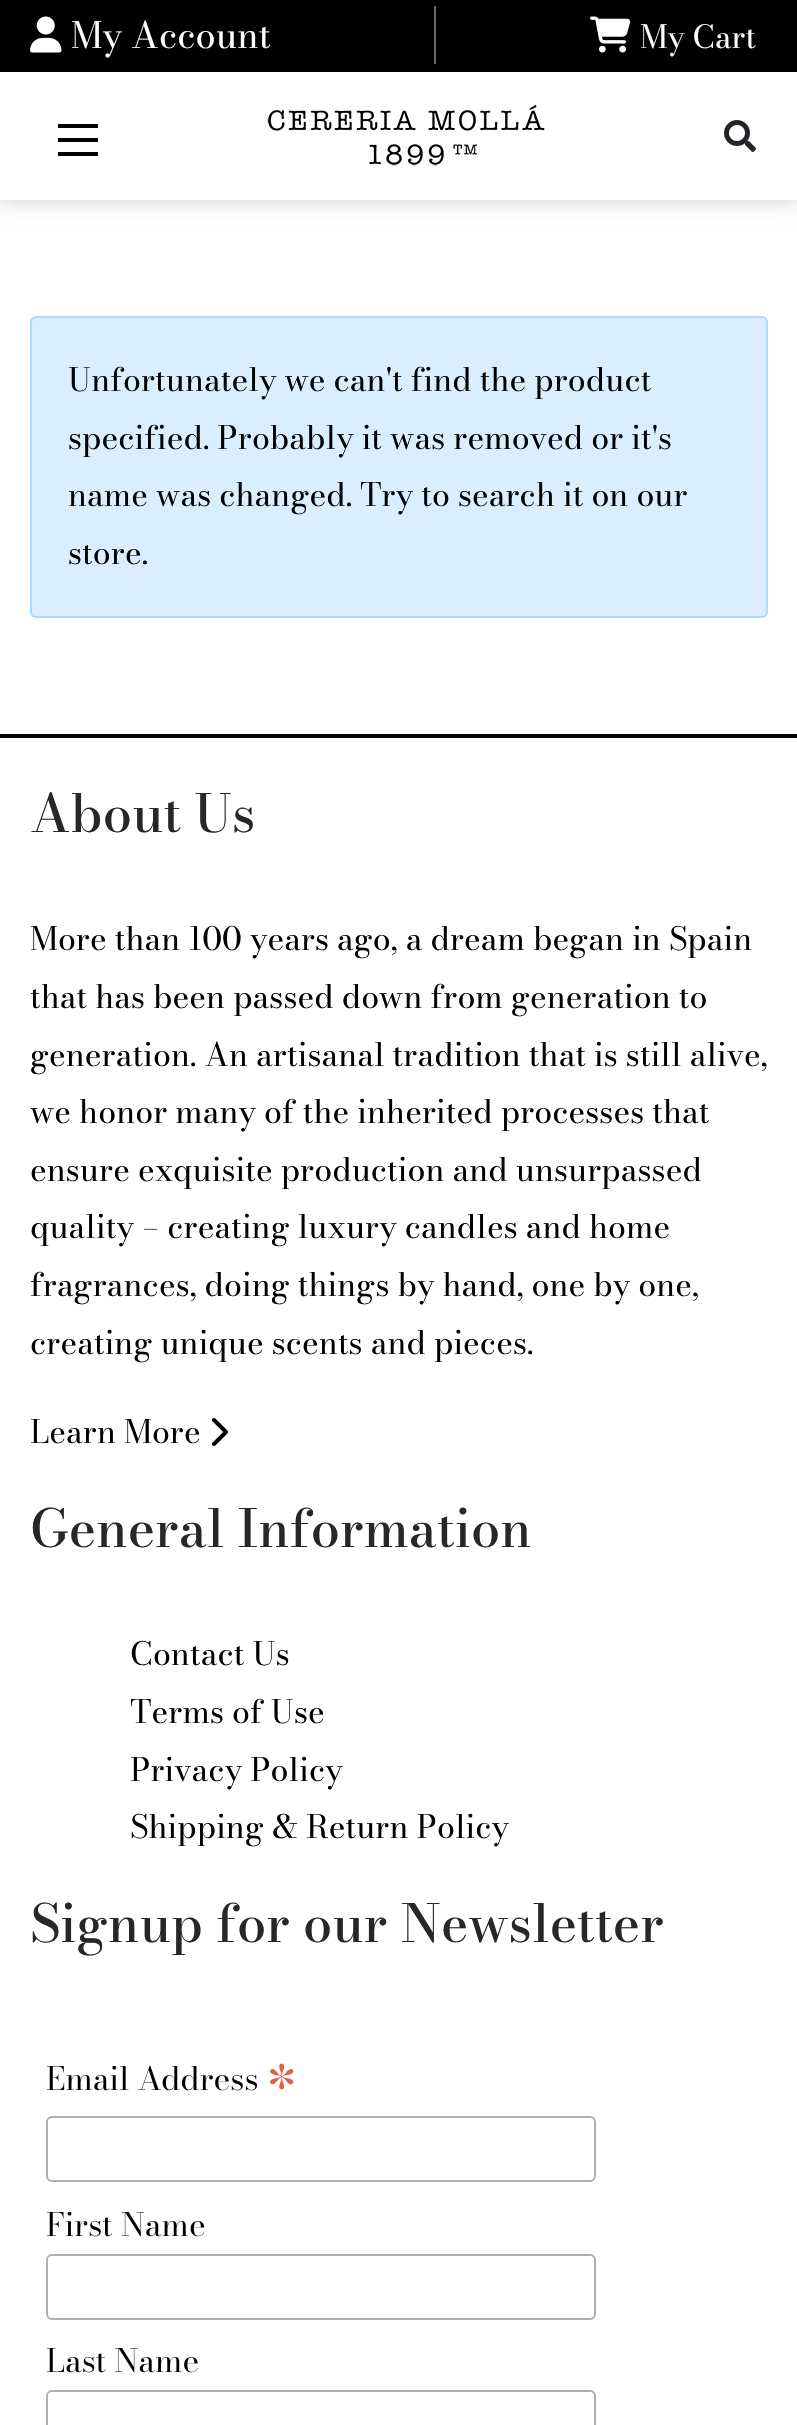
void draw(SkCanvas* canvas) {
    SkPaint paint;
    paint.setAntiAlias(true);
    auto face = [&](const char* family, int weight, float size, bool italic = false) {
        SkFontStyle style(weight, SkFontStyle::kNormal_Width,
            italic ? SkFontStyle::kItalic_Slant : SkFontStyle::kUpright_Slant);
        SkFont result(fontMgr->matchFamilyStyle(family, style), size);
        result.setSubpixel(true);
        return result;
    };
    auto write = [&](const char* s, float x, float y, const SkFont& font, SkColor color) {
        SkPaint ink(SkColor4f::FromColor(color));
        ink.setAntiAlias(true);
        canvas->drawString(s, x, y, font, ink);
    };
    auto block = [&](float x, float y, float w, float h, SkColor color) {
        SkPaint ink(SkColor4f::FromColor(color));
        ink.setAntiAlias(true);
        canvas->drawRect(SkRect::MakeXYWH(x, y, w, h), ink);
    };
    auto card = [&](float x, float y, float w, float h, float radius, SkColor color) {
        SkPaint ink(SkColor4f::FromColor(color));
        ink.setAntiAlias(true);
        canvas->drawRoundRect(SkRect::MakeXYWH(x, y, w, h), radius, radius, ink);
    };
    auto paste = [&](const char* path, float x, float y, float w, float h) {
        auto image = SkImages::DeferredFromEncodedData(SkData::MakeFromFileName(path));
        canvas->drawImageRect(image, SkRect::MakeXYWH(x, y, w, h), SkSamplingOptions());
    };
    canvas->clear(SK_ColorWHITE);
    block(0, 0, 797, 72, SK_ColorBLACK);
    canvas->save();
    canvas->clipPath(SkPathBuilder(SkPathFillType::kEvenOdd).moveTo(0, 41).lineTo(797, 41).lineTo(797, 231).lineTo(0, 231).close().moveTo(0, 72).lineTo(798, 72).lineTo(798, 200).lineTo(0, 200).close().detach(), true);
    paint.setColor(SkColorSetARGB(51, 0, 0, 0));
    paint.setMaskFilter(SkMaskFilter::MakeBlur(kNormal_SkBlurStyle, 10));
    canvas->drawRect(SkRect::MakeXYWH(0, 72, 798, 128), paint);
    paint.setMaskFilter(nullptr);
    canvas->restore();
    paste("pic1.png", 30, 16, 32, 37);
    auto kFont1 = face("Bodoni Moda", 400, 36);
    write("My Account", 71, 48, kFont1, SK_ColorWHITE);
    block(434, 6, 2, 58, SkColorSetRGB(102, 102, 102));
    paste("pic2.png", 590, 16, 41, 37);
    auto kFont2 = face("Bodoni Moda", 400, 31.5f);
    write("My Cart", 640, 48, kFont2, SK_ColorWHITE);
    block(58, 124, 40, 4, SK_ColorBLACK);
    block(58, 138, 40, 4, SK_ColorBLACK);
    block(58, 152, 40, 4, SK_ColorBLACK);
    paste("pic3.png", 267, 104, 278, 62);
    paste("pic4.png", 724, 120, 32, 32);
    card(30, 316, 738, 302, 6, SkColorSetRGB(218, 238, 255));
    paint.setStyle(SkPaint::kStroke_Style);
    paint.setStrokeWidth(2);
    paint.setColor(SkColorSetARGB(51, 2, 139, 255));
    canvas->drawRoundRect(SkRect::MakeXYWH(31, 317, 736, 300), 5, 5, paint);
    auto kFont3 = face("Bodoni Moda", 400, 32);
    write("Unfortunately we can't find the product", 68, 391, kFont3, SK_ColorBLACK);
    write("specified. Probably it was removed or it's", 68, 449, kFont3, SK_ColorBLACK);
    write("name was changed. Try to search it on our", 68, 506, kFont3, SK_ColorBLACK);
    write("store.", 68, 564, kFont3, SK_ColorBLACK);
    block(0, 734, 797, 4, SK_ColorBLACK);
    auto kFont4 = face("Bodoni Moda", 500, 52);
    write("About Us", 30, 832, kFont4, SkColorSetRGB(39, 39, 39));
    write("More than 100 years ago, a dream began in Spain", 30, 950, kFont3, SK_ColorBLACK);
    write("that has been passed down from generation to", 30, 1008, kFont3, SK_ColorBLACK);
    write("generation. An artisanal tradition that is still alive,", 30, 1066, kFont3, SK_ColorBLACK);
    write("we honor many of the inherited processes that", 30, 1123, kFont3, SK_ColorBLACK);
    write("ensure exquisite production and unsurpassed", 30, 1181, kFont3, SK_ColorBLACK);
    write("quality – creating luxury candles and home", 30, 1238, kFont3, SK_ColorBLACK);
    write("fragrances, doing things by hand, one by one,", 30, 1296, kFont3, SK_ColorBLACK);
    write("creating unique scents and pieces.", 30, 1354, kFont3, SK_ColorBLACK);
    write("Learn More", 30, 1443, kFont3, SK_ColorBLACK);
    paste("pic5.png", 212, 1418, 16, 28);
    write("General Information", 30, 1547, kFont4, SkColorSetRGB(39, 39, 39));
    write("Contact Us", 130, 1665, kFont3, SK_ColorBLACK);
    write("Terms of Use", 130, 1723, kFont3, SK_ColorBLACK);
    write("Privacy Policy", 130, 1781, kFont3, SK_ColorBLACK);
    write("Shipping & Return Policy", 130, 1838, kFont3, SK_ColorBLACK);
    write("Signup for our Newsletter", 30, 1942, kFont4, SkColorSetRGB(39, 39, 39));
    paste("pic6.png", 46, 2063, 550, 362);
}
